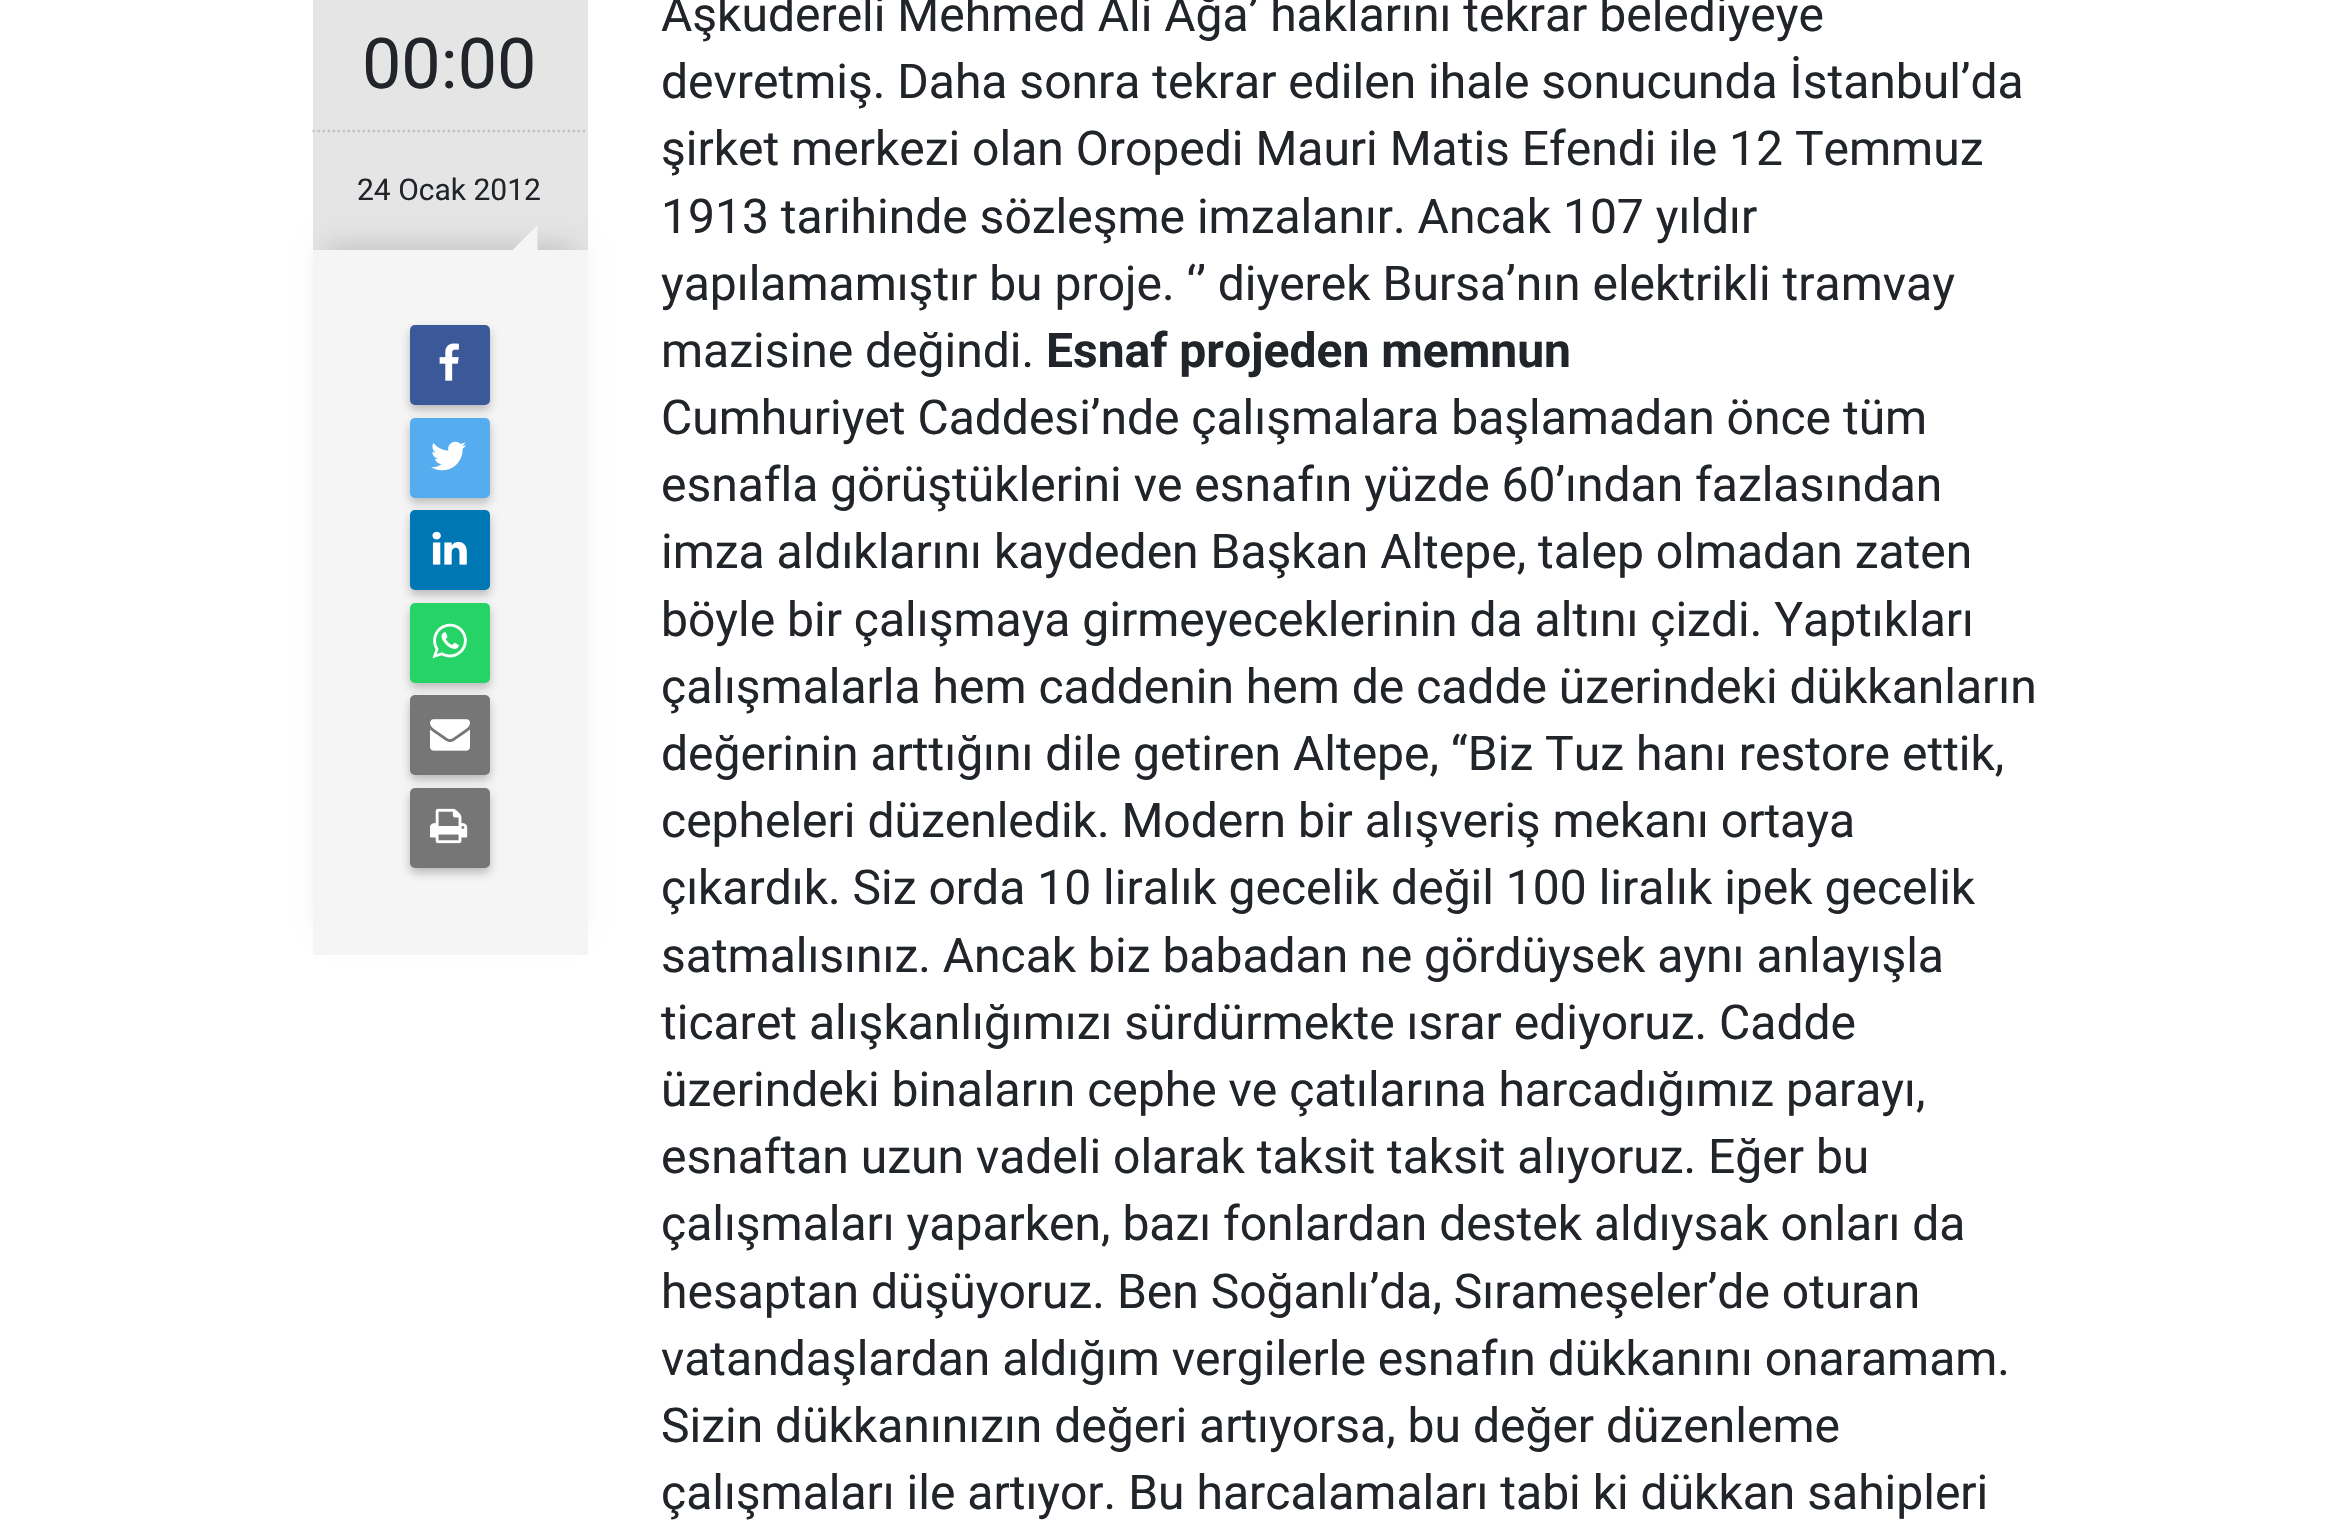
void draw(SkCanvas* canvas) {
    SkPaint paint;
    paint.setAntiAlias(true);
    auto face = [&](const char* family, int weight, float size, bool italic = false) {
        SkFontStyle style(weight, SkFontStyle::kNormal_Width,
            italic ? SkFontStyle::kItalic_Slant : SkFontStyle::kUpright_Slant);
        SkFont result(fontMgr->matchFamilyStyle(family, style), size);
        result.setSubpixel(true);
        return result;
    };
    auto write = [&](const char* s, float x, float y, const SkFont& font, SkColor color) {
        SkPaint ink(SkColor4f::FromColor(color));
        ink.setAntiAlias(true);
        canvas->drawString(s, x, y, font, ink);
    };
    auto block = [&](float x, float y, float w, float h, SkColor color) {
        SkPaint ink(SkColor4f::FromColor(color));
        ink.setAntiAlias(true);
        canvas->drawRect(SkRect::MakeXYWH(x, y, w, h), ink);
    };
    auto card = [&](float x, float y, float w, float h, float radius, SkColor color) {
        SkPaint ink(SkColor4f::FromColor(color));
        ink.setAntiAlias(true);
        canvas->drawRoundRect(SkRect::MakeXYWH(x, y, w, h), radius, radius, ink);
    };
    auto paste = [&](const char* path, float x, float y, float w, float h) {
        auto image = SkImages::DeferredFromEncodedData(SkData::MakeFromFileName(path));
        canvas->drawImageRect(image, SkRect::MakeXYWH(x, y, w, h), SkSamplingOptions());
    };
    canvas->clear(SK_ColorWHITE);
    block(313, 0, 275, 250, SkColorSetRGB(229, 229, 229));
    auto kFont1 = face("Roboto", 400, 70);
    write("00:00", 362, 88, kFont1, SkColorSetRGB(33, 37, 41));
    paint.setStyle(SkPaint::kStroke_Style);
    paint.setStrokeWidth(2.5f);
    paint.setColor(SkColorSetRGB(195, 195, 195));
    paint.setPathEffect(SkDashPathEffect::Make({{2.5f, 2.5f}}, 0));
    canvas->drawPath(SkPathBuilder().moveTo(312.5f, 131).lineTo(587.5f, 131).detach(), paint);
    paint.setPathEffect(nullptr);
    auto kFont2 = face("Roboto", 400, 30);
    write("24 Ocak 2012", 357, 200, kFont2, SkColorSetRGB(33, 37, 41));
    paint.setStyle(SkPaint::kFill_Style);
    paint.setColor(SkColorSetARGB(38, 0, 0, 0));
    paint.setMaskFilter(SkMaskFilter::MakeBlur(kNormal_SkBlurStyle, 12.5f));
    canvas->drawRect(SkRect::MakeXYWH(325, 245, 250, 680), paint);
    paint.setMaskFilter(nullptr);
    block(313, 250, 275, 705, SkColorSetRGB(245, 245, 245));
    paint.setColor(SkColorSetRGB(245, 245, 245));
    canvas->drawPath(SkPathBuilder().moveTo(537.5f, 250).lineTo(512.5f, 250).lineTo(537.5f, 225).close().detach(), paint);
    paint.setColor(SkColorSetARGB(77, 50, 50, 50));
    paint.setMaskFilter(SkMaskFilter::MakeBlur(kNormal_SkBlurStyle, 5));
    canvas->drawRoundRect(SkRect::MakeXYWH(410, 330, 80, 80), 5, 5, paint);
    paint.setMaskFilter(nullptr);
    card(410, 325, 80, 80, 5, SkColorSetRGB(59, 89, 153));
    paste("pic1.png", 439, 343, 20, 38);
    paint.setMaskFilter(SkMaskFilter::MakeBlur(kNormal_SkBlurStyle, 5));
    canvas->drawRoundRect(SkRect::MakeXYWH(410, 423, 80, 80), 5, 5, paint);
    paint.setMaskFilter(nullptr);
    card(410, 418, 80, 80, 5, SkColorSetRGB(85, 172, 238));
    paste("pic2.png", 431, 441, 35, 30);
    paint.setMaskFilter(SkMaskFilter::MakeBlur(kNormal_SkBlurStyle, 5));
    canvas->drawRoundRect(SkRect::MakeXYWH(410, 515, 80, 80), 5, 5, paint);
    paint.setMaskFilter(nullptr);
    card(410, 510, 80, 80, 5, SkColorSetRGB(0, 119, 181));
    paste("pic3.png", 432, 531, 35, 34);
    paint.setMaskFilter(SkMaskFilter::MakeBlur(kNormal_SkBlurStyle, 5));
    canvas->drawRoundRect(SkRect::MakeXYWH(410, 608, 80, 80), 5, 5, paint);
    paint.setMaskFilter(nullptr);
    card(410, 603, 80, 80, 5, SkColorSetRGB(37, 211, 102));
    paste("pic4.png", 432, 623, 35, 36);
    paint.setMaskFilter(SkMaskFilter::MakeBlur(kNormal_SkBlurStyle, 5));
    canvas->drawRoundRect(SkRect::MakeXYWH(410, 700, 80, 80), 5, 5, paint);
    paint.setMaskFilter(nullptr);
    card(410, 695, 80, 80, 5, SkColorSetRGB(118, 118, 118));
    paste("pic5.png", 430, 719, 40, 32);
    paint.setMaskFilter(SkMaskFilter::MakeBlur(kNormal_SkBlurStyle, 5));
    canvas->drawRoundRect(SkRect::MakeXYWH(410, 793, 80, 80), 5, 5, paint);
    paint.setMaskFilter(nullptr);
    card(410, 788, 80, 80, 5, SkColorSetRGB(118, 118, 118));
    paste("pic6.png", 430, 808, 38, 36);
    auto kFont3 = face("Roboto", 400, 48);
    write("Aşkudereli Mehmed Ali Ağa’ haklarını tekrar belediyeye", 661, 31, kFont3, SkColorSetRGB(33, 37, 41));
    write("devretmiş. Daha sonra tekrar edilen ihale sonucunda İstanbul’da", 661, 98, kFont3, SkColorSetRGB(33, 37, 41));
    write("şirket merkezi olan Oropedi Mauri Matis Efendi ile 12 Temmuz", 661, 165, kFont3, SkColorSetRGB(33, 37, 41));
    write("1913 tarihinde sözleşme imzalanır. Ancak 107 yıldır", 661, 233, kFont3, SkColorSetRGB(33, 37, 41));
    write("yapılamamıştır bu proje. ‘’ diyerek Bursa’nın elektrikli tramvay", 661, 300, kFont3, SkColorSetRGB(33, 37, 41));
    write("mazisine değindi.", 661, 367, kFont3, SkColorSetRGB(33, 37, 41));
    auto kFont4 = face("Roboto", 700, 48);
    write("Esnaf projeden memnun", 1046, 367, kFont4, SkColorSetRGB(33, 37, 41));
    write("Cumhuriyet Caddesi’nde çalışmalara başlamadan önce tüm", 661, 434, kFont3, SkColorSetRGB(33, 37, 41));
    write("esnafla görüştüklerini ve esnafın yüzde 60’ından fazlasından", 661, 501, kFont3, SkColorSetRGB(33, 37, 41));
    write("imza aldıklarını kaydeden Başkan Altepe, talep olmadan zaten", 661, 568, kFont3, SkColorSetRGB(33, 37, 41));
    write("böyle bir çalışmaya girmeyeceklerinin da altını çizdi. Yaptıkları", 661, 636, kFont3, SkColorSetRGB(33, 37, 41));
    write("çalışmalarla hem caddenin hem de cadde üzerindeki dükkanların", 661, 703, kFont3, SkColorSetRGB(33, 37, 41));
    write("değerinin arttığını dile getiren Altepe, “Biz Tuz hanı restore ettik,", 661, 770, kFont3, SkColorSetRGB(33, 37, 41));
    write("cepheleri düzenledik. Modern bir alışveriş mekanı ortaya", 661, 837, kFont3, SkColorSetRGB(33, 37, 41));
    write("çıkardık. Siz orda 10 liralık gecelik değil 100 liralık ipek gecelik", 661, 904, kFont3, SkColorSetRGB(33, 37, 41));
    write("satmalısınız. Ancak biz babadan ne gördüysek aynı anlayışla", 661, 972, kFont3, SkColorSetRGB(33, 37, 41));
    write("ticaret alışkanlığımızı sürdürmekte ısrar ediyoruz. Cadde", 661, 1039, kFont3, SkColorSetRGB(33, 37, 41));
    write("üzerindeki binaların cephe ve çatılarına harcadığımız parayı,", 661, 1106, kFont3, SkColorSetRGB(33, 37, 41));
    write("esnaftan uzun vadeli olarak taksit taksit alıyoruz. Eğer bu", 661, 1173, kFont3, SkColorSetRGB(33, 37, 41));
    write("çalışmaları yaparken, bazı fonlardan destek aldıysak onları da", 661, 1240, kFont3, SkColorSetRGB(33, 37, 41));
    write("hesaptan düşüyoruz. Ben Soğanlı’da, Sırameşeler’de oturan", 661, 1308, kFont3, SkColorSetRGB(33, 37, 41));
    write("vatandaşlardan aldığım vergilerle esnafın dükkanını onaramam.", 661, 1375, kFont3, SkColorSetRGB(33, 37, 41));
    write("Sizin dükkanınızın değeri artıyorsa, bu değer düzenleme", 661, 1442, kFont3, SkColorSetRGB(33, 37, 41));
    write("çalışmaları ile artıyor. Bu harcalamaları tabi ki dükkan sahipleri", 661, 1509, kFont3, SkColorSetRGB(33, 37, 41));
}
